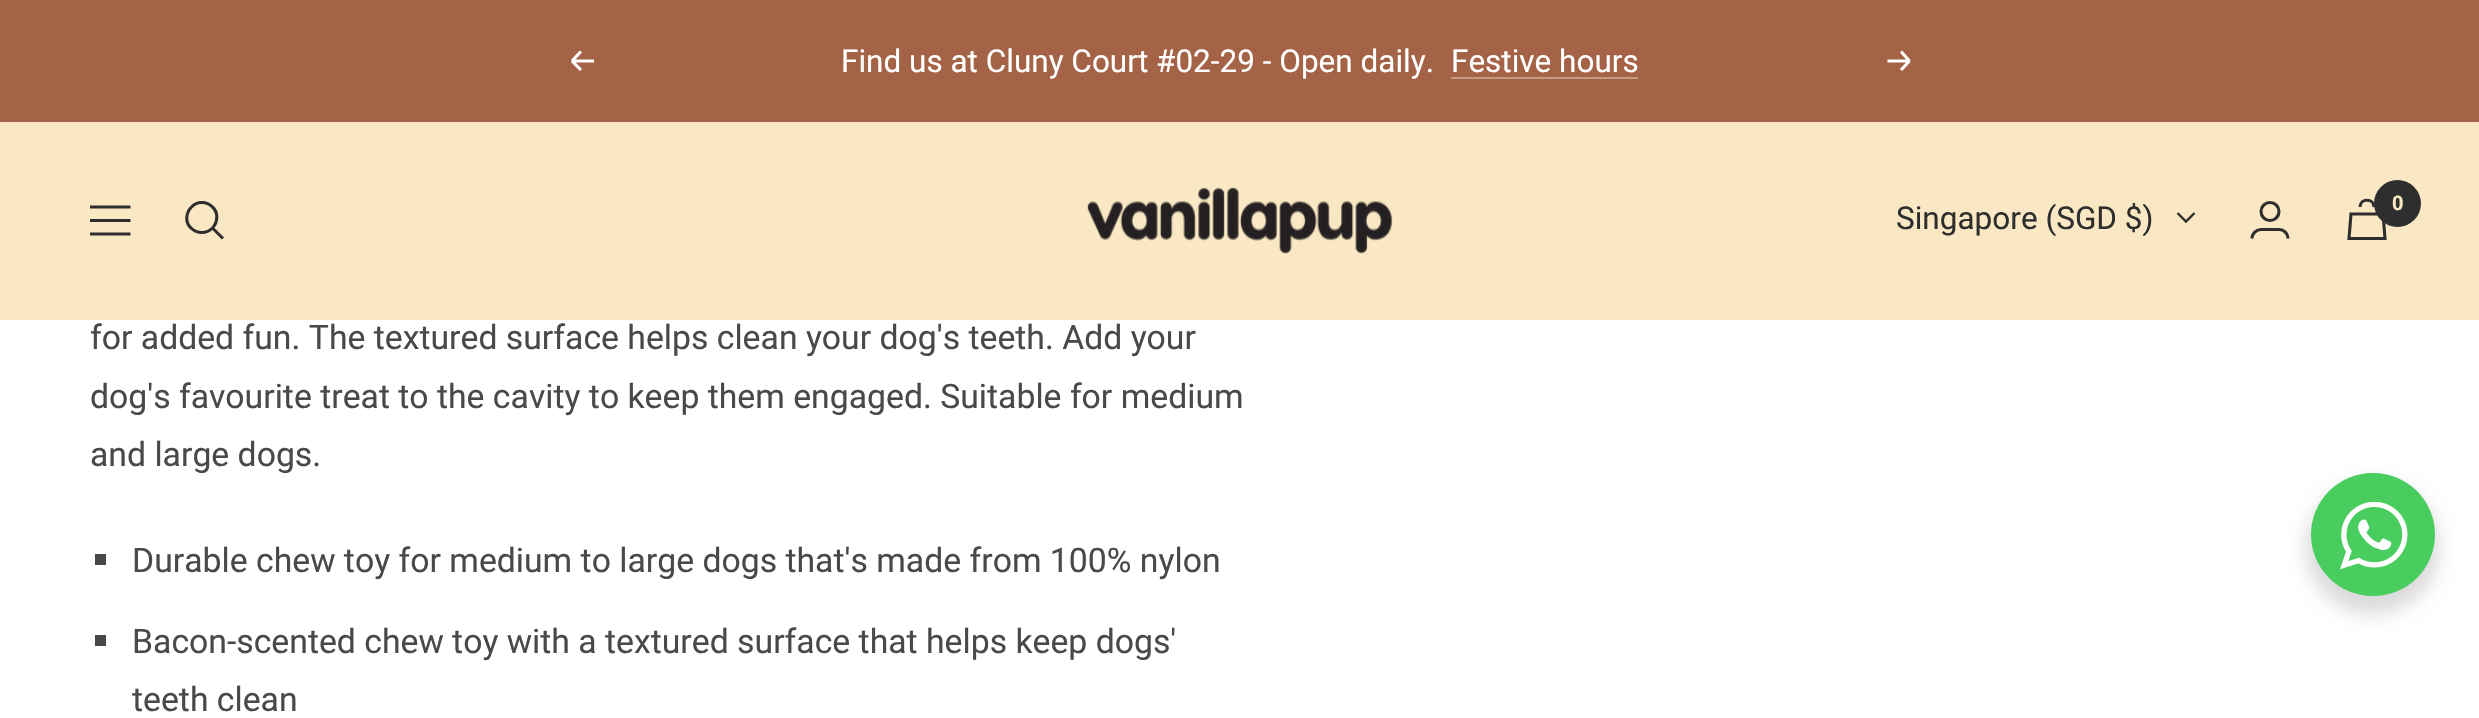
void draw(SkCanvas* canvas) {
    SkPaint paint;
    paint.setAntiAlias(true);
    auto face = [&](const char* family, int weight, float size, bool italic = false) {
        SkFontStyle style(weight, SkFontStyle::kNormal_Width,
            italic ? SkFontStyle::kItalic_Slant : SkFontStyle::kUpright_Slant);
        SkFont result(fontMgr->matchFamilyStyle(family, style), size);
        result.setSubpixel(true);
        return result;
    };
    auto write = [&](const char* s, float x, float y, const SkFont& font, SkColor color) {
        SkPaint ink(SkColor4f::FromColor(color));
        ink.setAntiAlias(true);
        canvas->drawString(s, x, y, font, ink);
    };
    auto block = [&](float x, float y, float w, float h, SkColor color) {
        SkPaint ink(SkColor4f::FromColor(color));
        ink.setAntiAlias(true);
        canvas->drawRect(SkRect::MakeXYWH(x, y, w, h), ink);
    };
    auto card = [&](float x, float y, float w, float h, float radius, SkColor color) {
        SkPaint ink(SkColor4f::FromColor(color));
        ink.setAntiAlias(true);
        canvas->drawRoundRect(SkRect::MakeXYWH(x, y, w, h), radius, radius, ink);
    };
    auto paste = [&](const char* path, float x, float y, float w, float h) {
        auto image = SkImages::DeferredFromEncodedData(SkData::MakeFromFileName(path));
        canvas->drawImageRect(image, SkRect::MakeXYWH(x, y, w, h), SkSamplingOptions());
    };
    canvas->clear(SK_ColorWHITE);
    block(0, 0, 2479, 122, SkColorSetRGB(164, 99, 71));
    paint.setStyle(SkPaint::kStroke_Style);
    paint.setStrokeWidth(3.1f);
    paint.setColor(SK_ColorWHITE);
    canvas->drawPath(SkPathBuilder().moveTo(594, 61).lineTo(572, 61).moveTo(572, 61).lineTo(581, 70).moveTo(572, 61).lineTo(581, 51.5f).detach(), paint);
    auto kFont1 = face("Roboto", 400, 31.5f);
    write("Find us at Cluny Court #02-29 - Open daily.", 841, 72, kFont1, SK_ColorWHITE);
    write("Festive hours", 1451, 72, kFont1, SK_ColorWHITE);
    block(1451, 77, 187, 2, SkColorSetRGB(196, 154, 135));
    canvas->drawPath(SkPathBuilder().moveTo(1887.5f, 61).lineTo(1909.5f, 61).moveTo(1909.5f, 61).lineTo(1901, 70).moveTo(1909.5f, 61).lineTo(1901, 51.5f).detach(), paint);
    block(0, 122, 2479, 198, SkColorSetRGB(249, 232, 195));
    paint.setColor(SkColorSetRGB(46, 46, 46));
    canvas->drawPath(SkPathBuilder().moveTo(90, 207).lineTo(130.5f, 207).moveTo(90, 234).lineTo(130.5f, 234).close().moveTo(90, 220.5f).lineTo(130.5f, 220.5f).close().detach(), paint);
    canvas->drawPath(SkPathBuilder().moveTo(212.5f, 228).cubicTo(218, 222, 218.5f, 212.5f, 212.5f, 207).cubicTo(206.5f, 201, 197, 201, 191.5f, 207).cubicTo(185.5f, 213, 185, 222.5f, 191, 228).cubicTo(197, 234, 206.5f, 234, 212.5f, 228).close().moveTo(212.5f, 228).lineTo(223, 238.5f).detach(), paint);
    paste("pic1.png", 1087, 187, 306, 67);
    write("Singapore (SGD $)", 1896, 229, kFont1, SkColorSetRGB(46, 46, 46));
    paint.setStrokeWidth(2.4f);
    canvas->drawPath(SkPathBuilder().moveTo(2177.5f, 213).lineTo(2186, 221.5f).lineTo(2194.5f, 213).detach(), paint);
    paint.setStrokeWidth(3.1f);
    canvas->drawCircle(2270, 211.5f, 9, paint);
    canvas->drawPath(SkPathBuilder().moveTo(2252, 238.5f).cubicTo(2252, 233.5f, 2256.5f, 229.5f, 2261, 229.5f).lineTo(2279, 229.5f).cubicTo(2284, 229.5f, 2288, 233.5f, 2288, 238.5f).detach(), paint);
    canvas->drawPath(SkPathBuilder().moveTo(2351, 214).lineTo(2383, 214).lineTo(2385, 238.5f).lineTo(2349, 238.5f).close().moveTo(2374, 207).cubicTo(2374, 198, 2360, 198, 2360, 207).detach(), paint);
    paint.setStyle(SkPaint::kFill_Style);
    canvas->drawCircle(2397.5f, 203.5f, 23.5f, paint);
    auto kFont2 = face("Roboto", 700, 20);
    write("0", 2392, 210, kFont2, SkColorSetRGB(249, 232, 195));
    auto kFont3 = face("Roboto", 400, 33.75f);
    write("for added fun. The textured surface helps clean your dog's teeth. Add your", 90, 349, kFont3, SkColorSetRGB(73, 73, 73));
    write("dog's favourite treat to the cavity to keep them engaged. Suitable for medium", 90, 408, kFont3, SkColorSetRGB(73, 73, 73));
    write("and large dogs.", 90, 466, kFont3, SkColorSetRGB(73, 73, 73));
    block(95, 554, 11, 11, SkColorSetRGB(73, 73, 73));
    write("Durable chew toy for medium to large dogs that's made from 100% nylon", 132, 572, kFont3, SkColorSetRGB(73, 73, 73));
    block(95, 635, 11, 11, SkColorSetRGB(73, 73, 73));
    write("Bacon-scented chew toy with a textured surface that helps keep dogs'", 132, 653, kFont3, SkColorSetRGB(73, 73, 73));
    write("teeth clean", 132, 711, kFont3, SkColorSetRGB(73, 73, 73));
    paint.setColor(SkColorSetARGB(36, 0, 0, 0));
    paint.setMaskFilter(SkMaskFilter::MakeBlur(kNormal_SkBlurStyle, 9));
    canvas->drawRoundRect(SkRect::MakeXYWH(2306, 482, 133, 132), 66, 66, paint);
    paint.setMaskFilter(nullptr);
    card(2311, 473, 124, 123, 61.5f, SkColorSetRGB(74, 205, 95));
    paste("pic2.png", 2340, 502, 68, 67);
}
